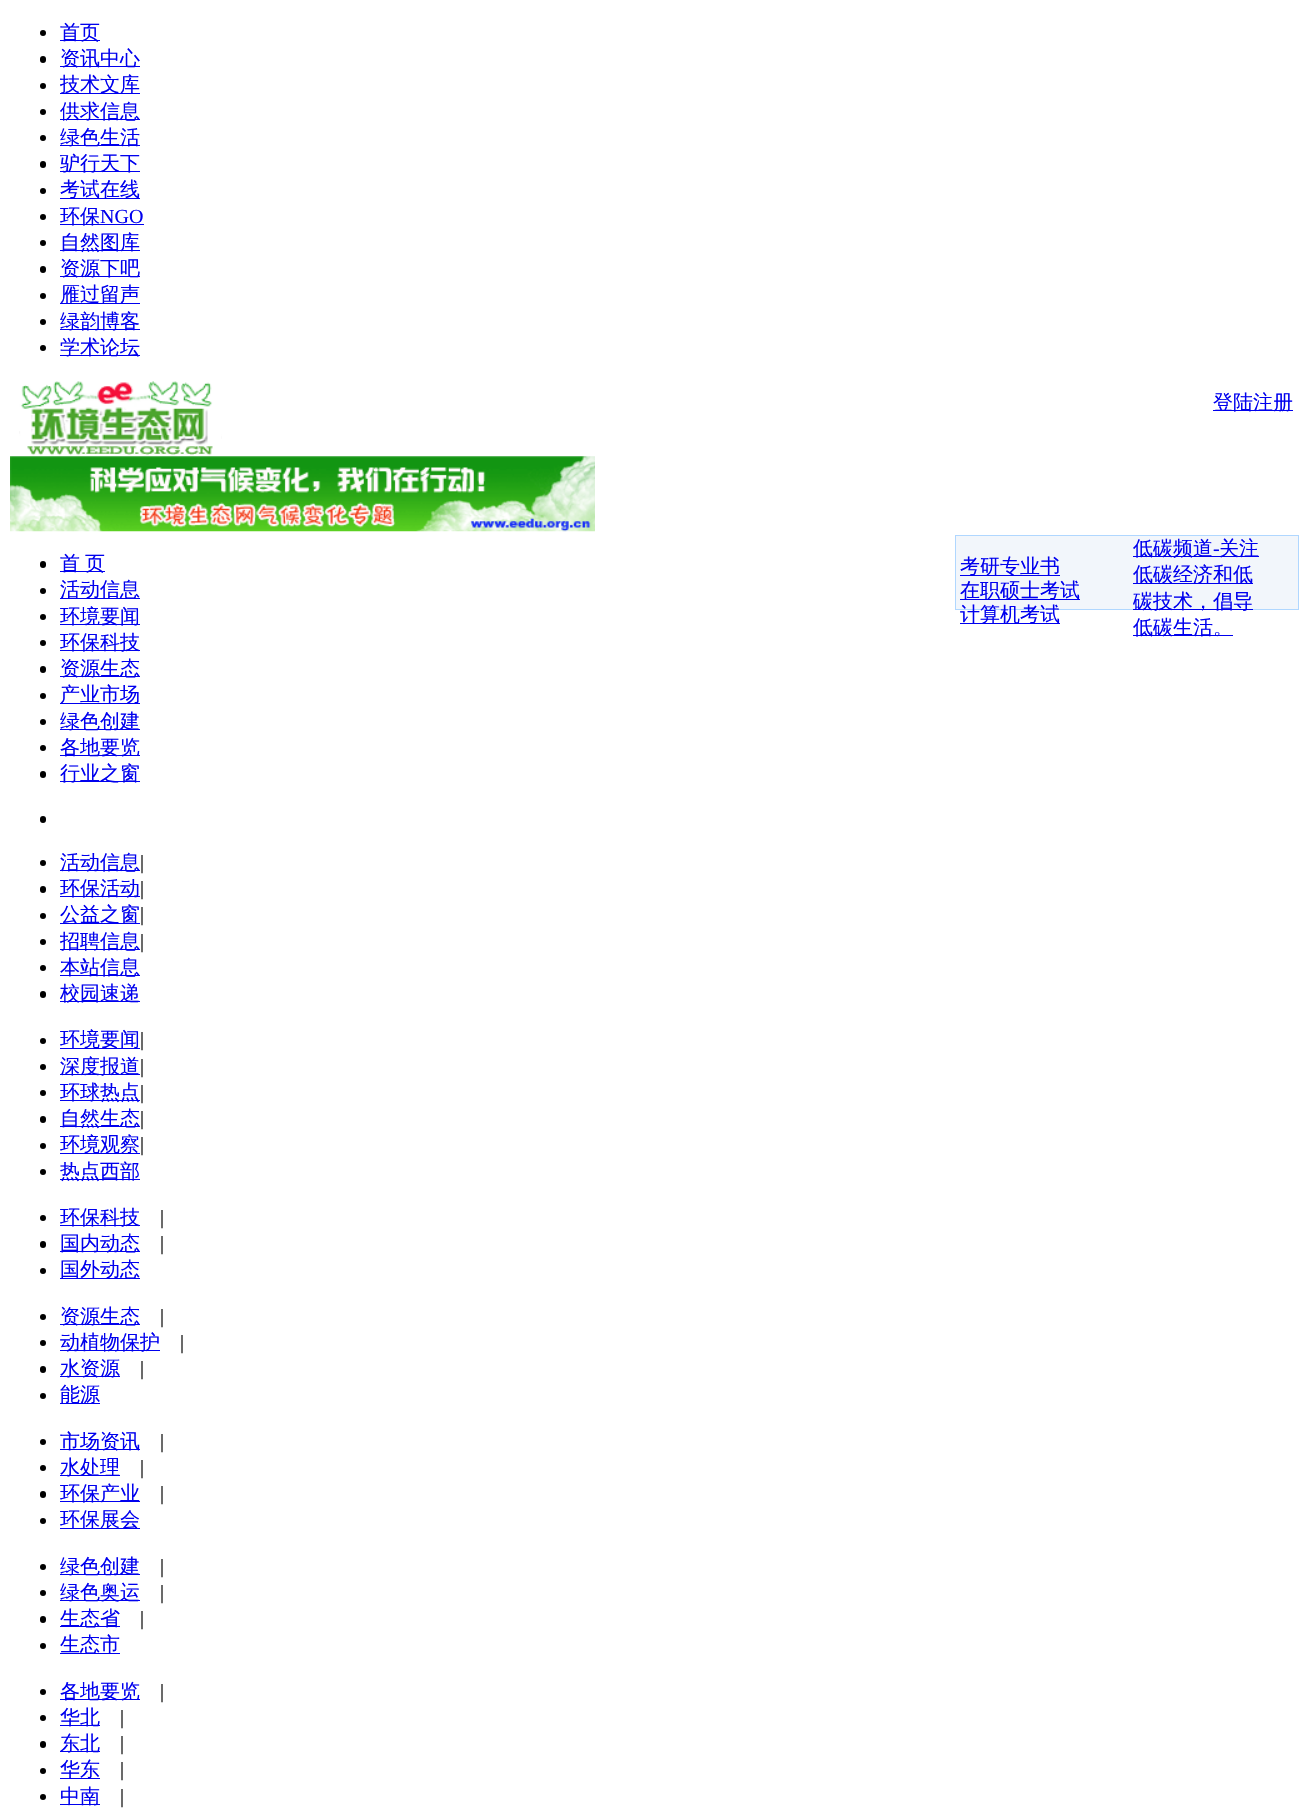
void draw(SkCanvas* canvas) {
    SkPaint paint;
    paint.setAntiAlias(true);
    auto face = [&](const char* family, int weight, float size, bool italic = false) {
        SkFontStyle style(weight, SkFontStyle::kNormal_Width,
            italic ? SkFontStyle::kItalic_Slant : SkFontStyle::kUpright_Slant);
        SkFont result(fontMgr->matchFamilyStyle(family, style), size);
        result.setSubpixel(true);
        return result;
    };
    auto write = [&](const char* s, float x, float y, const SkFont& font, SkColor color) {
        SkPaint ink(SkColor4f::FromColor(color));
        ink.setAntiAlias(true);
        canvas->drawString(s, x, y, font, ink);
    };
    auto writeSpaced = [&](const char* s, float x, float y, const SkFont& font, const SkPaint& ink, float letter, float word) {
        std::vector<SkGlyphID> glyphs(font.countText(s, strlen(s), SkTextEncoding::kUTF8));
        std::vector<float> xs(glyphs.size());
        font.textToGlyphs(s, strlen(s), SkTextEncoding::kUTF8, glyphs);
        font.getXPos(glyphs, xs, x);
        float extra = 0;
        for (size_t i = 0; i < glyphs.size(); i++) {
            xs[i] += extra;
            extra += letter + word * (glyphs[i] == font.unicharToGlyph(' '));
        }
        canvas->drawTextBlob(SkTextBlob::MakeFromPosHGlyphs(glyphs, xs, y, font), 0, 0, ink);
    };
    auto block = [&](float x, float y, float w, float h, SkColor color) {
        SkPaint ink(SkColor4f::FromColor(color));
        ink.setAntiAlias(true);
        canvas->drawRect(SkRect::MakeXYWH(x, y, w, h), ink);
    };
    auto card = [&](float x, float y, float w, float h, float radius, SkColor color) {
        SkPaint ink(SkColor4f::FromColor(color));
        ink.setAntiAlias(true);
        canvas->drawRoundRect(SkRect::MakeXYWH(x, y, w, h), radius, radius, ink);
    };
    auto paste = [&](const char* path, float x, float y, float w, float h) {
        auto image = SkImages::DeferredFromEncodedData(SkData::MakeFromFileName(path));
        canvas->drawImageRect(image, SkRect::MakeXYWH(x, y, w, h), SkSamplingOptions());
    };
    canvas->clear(SK_ColorWHITE);
    paint.setColor(SK_ColorBLACK);
    canvas->drawCircle(43, 33, 3, paint);
    block(60, 40, 40, 1, SkColorSetRGB(0, 0, 238));
    auto kFont1 = face("WenQuanYi Zen Hei", 500, 20);
    write("首页", 60, 39, kFont1, SkColorSetRGB(0, 0, 238));
    card(40, 56, 6, 7, 3, SK_ColorBLACK);
    block(60, 66, 80, 1, SkColorSetRGB(0, 0, 238));
    write("资讯中心", 60, 65, kFont1, SkColorSetRGB(0, 0, 238));
    canvas->drawCircle(43, 86, 3, paint);
    block(60, 93, 80, 1, SkColorSetRGB(0, 0, 238));
    write("技术文库", 60, 91, kFont1, SkColorSetRGB(0, 0, 238));
    canvas->drawCircle(43, 112, 3, paint);
    block(60, 119, 80, 1, SkColorSetRGB(0, 0, 238));
    write("供求信息", 60, 118, kFont1, SkColorSetRGB(0, 0, 238));
    canvas->drawCircle(43, 138, 3, paint);
    block(60, 145, 80, 1, SkColorSetRGB(0, 0, 238));
    write("绿色生活", 60, 144, kFont1, SkColorSetRGB(0, 0, 238));
    card(40, 161, 6, 7, 3, SK_ColorBLACK);
    block(60, 171, 80, 1, SkColorSetRGB(0, 0, 238));
    write("驴行天下", 60, 170, kFont1, SkColorSetRGB(0, 0, 238));
    canvas->drawCircle(43, 191, 3, paint);
    block(60, 198, 80, 1, SkColorSetRGB(0, 0, 238));
    write("考试在线", 60, 196, kFont1, SkColorSetRGB(0, 0, 238));
    canvas->drawCircle(43, 217, 3, paint);
    block(60, 224, 84, 1, SkColorSetRGB(0, 0, 238));
    write("环保", 60, 223, kFont1, SkColorSetRGB(0, 0, 238));
    auto kFont2 = face("Liberation Serif", 400, 20);
    write("NGO", 100, 223, kFont2, SkColorSetRGB(0, 0, 238));
    canvas->drawCircle(43, 243, 3, paint);
    block(60, 250, 80, 1, SkColorSetRGB(0, 0, 238));
    write("自然图库", 60, 249, kFont1, SkColorSetRGB(0, 0, 238));
    card(40, 266, 6, 7, 3, SK_ColorBLACK);
    block(60, 276, 80, 1, SkColorSetRGB(0, 0, 238));
    write("资源下吧", 60, 275, kFont1, SkColorSetRGB(0, 0, 238));
    canvas->drawCircle(43, 296, 3, paint);
    block(60, 303, 80, 1, SkColorSetRGB(0, 0, 238));
    write("雁过留声", 60, 301, kFont1, SkColorSetRGB(0, 0, 238));
    canvas->drawCircle(43, 322, 3, paint);
    block(60, 329, 80, 1, SkColorSetRGB(0, 0, 238));
    write("绿韵博客", 60, 328, kFont1, SkColorSetRGB(0, 0, 238));
    canvas->drawCircle(43, 348, 3, paint);
    block(60, 355, 80, 1, SkColorSetRGB(0, 0, 238));
    write("学术论坛", 60, 354, kFont1, SkColorSetRGB(0, 0, 238));
    block(1213, 410, 80, 1, SkColorSetRGB(0, 0, 238));
    write("登陆注册", 1213, 409, kFont1, SkColorSetRGB(0, 0, 238));
    card(40, 561, 6, 7, 3, SK_ColorBLACK);
    block(60, 571, 45, 1, SkColorSetRGB(0, 0, 238));
    paint.setColor(SkColorSetRGB(0, 0, 238));
    writeSpaced("首 页", 60, 570, kFont1, paint, 0, -1);
    paint.setColor(SK_ColorBLACK);
    canvas->drawCircle(43, 591, 3, paint);
    block(60, 598, 80, 1, SkColorSetRGB(0, 0, 238));
    write("活动信息", 60, 596, kFont1, SkColorSetRGB(0, 0, 238));
    canvas->drawCircle(43, 617, 3, paint);
    block(60, 624, 80, 1, SkColorSetRGB(0, 0, 238));
    write("环境要闻", 60, 623, kFont1, SkColorSetRGB(0, 0, 238));
    canvas->drawCircle(43, 643, 3, paint);
    block(60, 650, 80, 1, SkColorSetRGB(0, 0, 238));
    write("环保科技", 60, 649, kFont1, SkColorSetRGB(0, 0, 238));
    card(40, 666, 6, 7, 3, SK_ColorBLACK);
    block(60, 676, 80, 1, SkColorSetRGB(0, 0, 238));
    write("资源生态", 60, 675, kFont1, SkColorSetRGB(0, 0, 238));
    canvas->drawCircle(43, 696, 3, paint);
    block(60, 703, 80, 1, SkColorSetRGB(0, 0, 238));
    write("产业市场", 60, 701, kFont1, SkColorSetRGB(0, 0, 238));
    canvas->drawCircle(43, 722, 3, paint);
    block(60, 729, 80, 1, SkColorSetRGB(0, 0, 238));
    write("绿色创建", 60, 728, kFont1, SkColorSetRGB(0, 0, 238));
    canvas->drawCircle(43, 748, 3, paint);
    block(60, 755, 80, 1, SkColorSetRGB(0, 0, 238));
    write("各地要览", 60, 754, kFont1, SkColorSetRGB(0, 0, 238));
    card(40, 771, 6, 7, 3, SK_ColorBLACK);
    block(60, 781, 80, 1, SkColorSetRGB(0, 0, 238));
    write("行业之窗", 60, 780, kFont1, SkColorSetRGB(0, 0, 238));
    card(40, 816, 6, 7, 3, SK_ColorBLACK);
    canvas->drawCircle(43, 863, 3, paint);
    block(60, 870, 80, 1, SkColorSetRGB(0, 0, 238));
    write("活动信息", 60, 869, kFont1, SkColorSetRGB(0, 0, 238));
    write("|", 140, 869, kFont2, SK_ColorBLACK);
    card(40, 886, 6, 7, 3, SK_ColorBLACK);
    block(60, 896, 80, 1, SkColorSetRGB(0, 0, 238));
    write("环保活动", 60, 895, kFont1, SkColorSetRGB(0, 0, 238));
    write("|", 140, 895, kFont2, SK_ColorBLACK);
    canvas->drawCircle(43, 916, 3, paint);
    block(60, 923, 80, 1, SkColorSetRGB(0, 0, 238));
    write("公益之窗", 60, 921, kFont1, SkColorSetRGB(0, 0, 238));
    write("|", 140, 921, kFont2, SK_ColorBLACK);
    canvas->drawCircle(43, 942, 3, paint);
    block(60, 949, 80, 1, SkColorSetRGB(0, 0, 238));
    write("招聘信息", 60, 948, kFont1, SkColorSetRGB(0, 0, 238));
    write("|", 140, 948, kFont2, SK_ColorBLACK);
    canvas->drawCircle(43, 968, 3, paint);
    block(60, 975, 80, 1, SkColorSetRGB(0, 0, 238));
    write("本站信息", 60, 974, kFont1, SkColorSetRGB(0, 0, 238));
    card(40, 991, 6, 7, 3, SK_ColorBLACK);
    block(60, 1001, 80, 1, SkColorSetRGB(0, 0, 238));
    write("校园速递", 60, 1000, kFont1, SkColorSetRGB(0, 0, 238));
    canvas->drawCircle(43, 1041, 3, paint);
    block(60, 1048, 80, 1, SkColorSetRGB(0, 0, 238));
    write("环境要闻", 60, 1046, kFont1, SkColorSetRGB(0, 0, 238));
    write("|", 140, 1046, kFont2, SK_ColorBLACK);
    canvas->drawCircle(43, 1067, 3, paint);
    block(60, 1074, 80, 1, SkColorSetRGB(0, 0, 238));
    write("深度报道", 60, 1073, kFont1, SkColorSetRGB(0, 0, 238));
    write("|", 140, 1073, kFont2, SK_ColorBLACK);
    canvas->drawCircle(43, 1093, 3, paint);
    block(60, 1100, 80, 1, SkColorSetRGB(0, 0, 238));
    write("环球热点", 60, 1099, kFont1, SkColorSetRGB(0, 0, 238));
    write("|", 140, 1099, kFont2, SK_ColorBLACK);
    card(40, 1116, 6, 7, 3, SK_ColorBLACK);
    block(60, 1126, 80, 1, SkColorSetRGB(0, 0, 238));
    write("自然生态", 60, 1125, kFont1, SkColorSetRGB(0, 0, 238));
    write("|", 140, 1125, kFont2, SK_ColorBLACK);
    canvas->drawCircle(43, 1146, 3, paint);
    block(60, 1153, 80, 1, SkColorSetRGB(0, 0, 238));
    write("环境观察", 60, 1151, kFont1, SkColorSetRGB(0, 0, 238));
    write("|", 140, 1151, kFont2, SK_ColorBLACK);
    canvas->drawCircle(43, 1172, 3, paint);
    block(60, 1179, 80, 1, SkColorSetRGB(0, 0, 238));
    write("热点西部", 60, 1178, kFont1, SkColorSetRGB(0, 0, 238));
    canvas->drawCircle(43, 1218, 3, paint);
    block(60, 1225, 80, 1, SkColorSetRGB(0, 0, 238));
    write("环保科技", 60, 1224, kFont1, SkColorSetRGB(0, 0, 238));
    write("|", 160, 1224, kFont2, SK_ColorBLACK);
    card(40, 1241, 6, 7, 3, SK_ColorBLACK);
    block(60, 1251, 80, 1, SkColorSetRGB(0, 0, 238));
    write("国内动态", 60, 1250, kFont1, SkColorSetRGB(0, 0, 238));
    write("|", 160, 1250, kFont2, SK_ColorBLACK);
    canvas->drawCircle(43, 1271, 3, paint);
    block(60, 1278, 80, 1, SkColorSetRGB(0, 0, 238));
    write("国外动态", 60, 1276, kFont1, SkColorSetRGB(0, 0, 238));
    canvas->drawCircle(43, 1317, 3, paint);
    block(60, 1324, 80, 1, SkColorSetRGB(0, 0, 238));
    write("资源生态", 60, 1323, kFont1, SkColorSetRGB(0, 0, 238));
    write("|", 160, 1323, kFont2, SK_ColorBLACK);
    canvas->drawCircle(43, 1343, 3, paint);
    block(60, 1350, 100, 1, SkColorSetRGB(0, 0, 238));
    write("动植物保护", 60, 1349, kFont1, SkColorSetRGB(0, 0, 238));
    write("|", 180, 1349, kFont2, SK_ColorBLACK);
    card(40, 1366, 6, 7, 3, SK_ColorBLACK);
    block(60, 1376, 60, 1, SkColorSetRGB(0, 0, 238));
    write("水资源", 60, 1375, kFont1, SkColorSetRGB(0, 0, 238));
    write("|", 140, 1375, kFont2, SK_ColorBLACK);
    canvas->drawCircle(43, 1396, 3, paint);
    block(60, 1403, 40, 1, SkColorSetRGB(0, 0, 238));
    write("能源", 60, 1401, kFont1, SkColorSetRGB(0, 0, 238));
    canvas->drawCircle(43, 1442, 3, paint);
    block(60, 1449, 80, 1, SkColorSetRGB(0, 0, 238));
    write("市场资讯", 60, 1448, kFont1, SkColorSetRGB(0, 0, 238));
    write("|", 160, 1448, kFont2, SK_ColorBLACK);
    canvas->drawCircle(43, 1468, 3, paint);
    block(60, 1475, 60, 1, SkColorSetRGB(0, 0, 238));
    write("水处理", 60, 1474, kFont1, SkColorSetRGB(0, 0, 238));
    write("|", 140, 1474, kFont2, SK_ColorBLACK);
    card(40, 1491, 6, 7, 3, SK_ColorBLACK);
    block(60, 1501, 80, 1, SkColorSetRGB(0, 0, 238));
    write("环保产业", 60, 1500, kFont1, SkColorSetRGB(0, 0, 238));
    write("|", 160, 1500, kFont2, SK_ColorBLACK);
    canvas->drawCircle(43, 1521, 3, paint);
    block(60, 1528, 80, 1, SkColorSetRGB(0, 0, 238));
    write("环保展会", 60, 1526, kFont1, SkColorSetRGB(0, 0, 238));
    canvas->drawCircle(43, 1567, 3, paint);
    block(60, 1574, 80, 1, SkColorSetRGB(0, 0, 238));
    write("绿色创建", 60, 1573, kFont1, SkColorSetRGB(0, 0, 238));
    write("|", 160, 1573, kFont2, SK_ColorBLACK);
    canvas->drawCircle(43, 1593, 3, paint);
    block(60, 1600, 80, 1, SkColorSetRGB(0, 0, 238));
    write("绿色奥运", 60, 1599, kFont1, SkColorSetRGB(0, 0, 238));
    write("|", 160, 1599, kFont2, SK_ColorBLACK);
    card(40, 1616, 6, 7, 3, SK_ColorBLACK);
    block(60, 1626, 60, 1, SkColorSetRGB(0, 0, 238));
    write("生态省", 60, 1625, kFont1, SkColorSetRGB(0, 0, 238));
    write("|", 140, 1625, kFont2, SK_ColorBLACK);
    canvas->drawCircle(43, 1646, 3, paint);
    block(60, 1653, 60, 1, SkColorSetRGB(0, 0, 238));
    write("生态市", 60, 1651, kFont1, SkColorSetRGB(0, 0, 238));
    canvas->drawCircle(43, 1692, 3, paint);
    block(60, 1699, 80, 1, SkColorSetRGB(0, 0, 238));
    write("各地要览", 60, 1698, kFont1, SkColorSetRGB(0, 0, 238));
    write("|", 160, 1698, kFont2, SK_ColorBLACK);
    canvas->drawCircle(43, 1718, 3, paint);
    block(60, 1725, 40, 1, SkColorSetRGB(0, 0, 238));
    write("华北", 60, 1724, kFont1, SkColorSetRGB(0, 0, 238));
    write("|", 120, 1724, kFont2, SK_ColorBLACK);
    card(40, 1741, 6, 7, 3, SK_ColorBLACK);
    block(60, 1751, 40, 1, SkColorSetRGB(0, 0, 238));
    write("东北", 60, 1750, kFont1, SkColorSetRGB(0, 0, 238));
    write("|", 120, 1750, kFont2, SK_ColorBLACK);
    canvas->drawCircle(43, 1771, 3, paint);
    block(60, 1778, 40, 1, SkColorSetRGB(0, 0, 238));
    write("华东", 60, 1776, kFont1, SkColorSetRGB(0, 0, 238));
    write("|", 120, 1776, kFont2, SK_ColorBLACK);
    canvas->drawCircle(43, 1797, 3, paint);
    block(60, 1804, 40, 1, SkColorSetRGB(0, 0, 238));
    write("中南", 60, 1803, kFont1, SkColorSetRGB(0, 0, 238));
    write("|", 120, 1803, kFont2, SK_ColorBLACK);
    paste("pic1.png", 19, 381, 203, 75);
    paste("pic2.png", 10, 456, 585, 76);
    paint.setColor(SkColorSetRGB(242, 246, 251));
    canvas->drawRect(SkRect::MakeXYWH(955.5f, 535.5f, 343, 74), paint);
    paint.setStyle(SkPaint::kStroke_Style);
    paint.setStrokeWidth(1);
    paint.setColor(SkColorSetRGB(176, 215, 255));
    canvas->drawRect(SkRect::MakeXYWH(955.5f, 535.5f, 343, 74), paint);
    block(960, 575, 100, 1, SkColorSetRGB(0, 0, 238));
    write("考研专业书", 960, 573, kFont1, SkColorSetRGB(0, 0, 238));
    block(960, 599, 120, 1, SkColorSetRGB(0, 0, 238));
    write("在职硕士考试", 960, 597, kFont1, SkColorSetRGB(0, 0, 238));
    block(960, 623, 100, 1, SkColorSetRGB(0, 0, 238));
    write("计算机考试", 960, 621, kFont1, SkColorSetRGB(0, 0, 238));
    block(1133, 556, 126, 1, SkColorSetRGB(0, 0, 238));
    write("低碳频道", 1133, 555, kFont1, SkColorSetRGB(0, 0, 238));
    write("-", 1213, 555, kFont2, SkColorSetRGB(0, 0, 238));
    write("关注", 1219, 555, kFont1, SkColorSetRGB(0, 0, 238));
    block(1133, 583, 120, 1, SkColorSetRGB(0, 0, 238));
    write("低碳经济和低", 1133, 581, kFont1, SkColorSetRGB(0, 0, 238));
    block(1133, 609, 120, 1, SkColorSetRGB(0, 0, 238));
    write("碳技术，倡导", 1133, 608, kFont1, SkColorSetRGB(0, 0, 238));
    block(1133, 635, 100, 1, SkColorSetRGB(0, 0, 238));
    write("低碳生活。", 1133, 634, kFont1, SkColorSetRGB(0, 0, 238));
}
